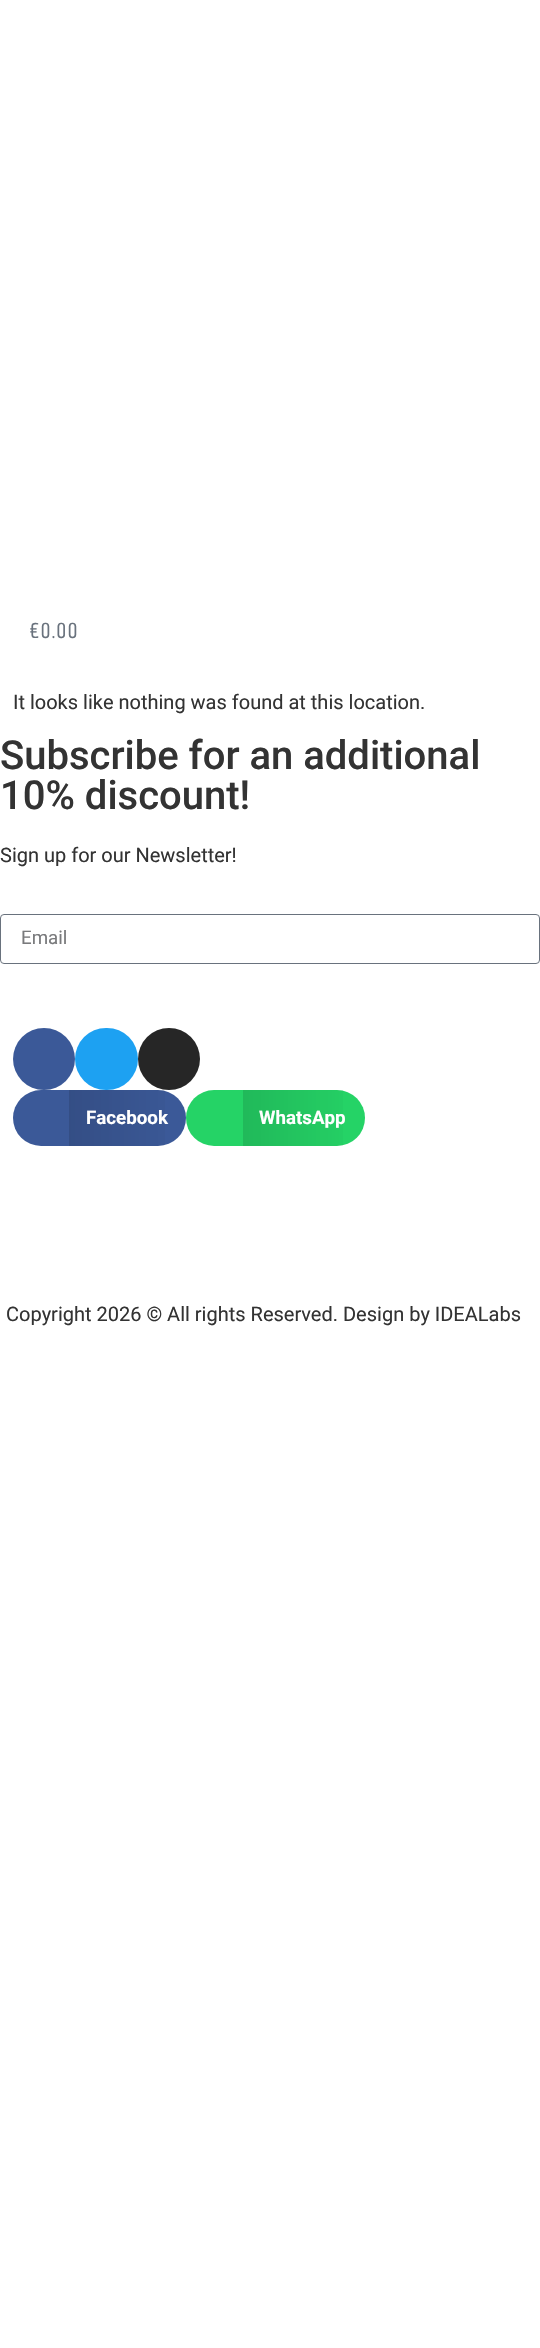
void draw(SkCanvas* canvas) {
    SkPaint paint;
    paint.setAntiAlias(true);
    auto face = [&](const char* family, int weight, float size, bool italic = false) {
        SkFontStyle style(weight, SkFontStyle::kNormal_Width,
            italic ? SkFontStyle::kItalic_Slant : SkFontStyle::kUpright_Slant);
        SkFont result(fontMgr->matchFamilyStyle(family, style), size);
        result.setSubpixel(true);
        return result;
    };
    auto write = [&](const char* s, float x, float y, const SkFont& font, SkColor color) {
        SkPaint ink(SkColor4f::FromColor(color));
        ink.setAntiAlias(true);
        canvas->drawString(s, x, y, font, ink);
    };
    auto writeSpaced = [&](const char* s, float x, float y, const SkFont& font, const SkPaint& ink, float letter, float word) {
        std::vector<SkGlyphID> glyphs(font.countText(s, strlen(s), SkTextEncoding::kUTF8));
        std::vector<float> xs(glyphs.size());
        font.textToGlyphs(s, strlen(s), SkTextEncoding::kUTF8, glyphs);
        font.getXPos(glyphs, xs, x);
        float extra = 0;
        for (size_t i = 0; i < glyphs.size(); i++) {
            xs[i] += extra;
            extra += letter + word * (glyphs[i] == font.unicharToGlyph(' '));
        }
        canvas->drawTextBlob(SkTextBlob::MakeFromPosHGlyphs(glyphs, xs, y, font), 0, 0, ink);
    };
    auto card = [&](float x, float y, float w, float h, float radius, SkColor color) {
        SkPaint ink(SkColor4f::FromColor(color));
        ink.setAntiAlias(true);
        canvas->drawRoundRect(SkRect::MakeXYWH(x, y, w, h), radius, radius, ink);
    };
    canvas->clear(SK_ColorWHITE);
    auto kFont1 = face("Khand", 400, 22.5f);
    paint.setColor(SkColorSetRGB(105, 114, 125));
    writeSpaced("€0.00", 30, 638, kFont1, paint, 1.25f, 0);
    auto kFont2 = face("Roboto", 400, 20);
    write("It looks like nothing was found at this location.", 13, 709, kFont2, SkColorSetRGB(51, 51, 51));
    auto kFont3 = face("Roboto", 500, 40);
    write("Subscribe for an additional", 0, 769, kFont3, SkColorSetRGB(51, 51, 51));
    write("10% discount!", 0, 809, kFont3, SkColorSetRGB(51, 51, 51));
    write("Sign up for our Newsletter!", 0, 862, kFont2, SkColorSetRGB(51, 51, 51));
    paint.setStyle(SkPaint::kStroke_Style);
    paint.setStrokeWidth(1);
    canvas->drawRoundRect(SkRect::MakeXYWH(0.5f, 914.5f, 539, 49), 3.5f, 3.5f, paint);
    auto kFont4 = face("Roboto", 400, 18.75f);
    write("Email", 21, 944, kFont4, SkColorSetRGB(121, 122, 124));
    paint.setStyle(SkPaint::kFill_Style);
    paint.setColor(SkColorSetRGB(59, 89, 152));
    canvas->drawCircle(44, 1059, 31, paint);
    card(75, 1028, 63, 62, 31, SkColorSetRGB(29, 161, 242));
    paint.setColor(SkColorSetRGB(38, 38, 38));
    canvas->drawCircle(169, 1059, 31, paint);
    card(13, 1090, 173, 56, 28, SkColorSetRGB(59, 89, 152));
    {
        const SkColor colors[] = {SkColorSetARGB(31, 0, 0, 0), SkColorSetARGB(0, 0, 0, 0)};
        const float stops[] = {0, 1};
        const SkPoint ends[] = {{69, 1118}, {186, 1118}};
        paint.setShader(SkGradientShader::MakeLinear(ends, colors, stops, 2, SkTileMode::kClamp));
        paint.setAlpha(255);
    }
    canvas->drawRect(SkRect::MakeXYWH(69, 1090, 96, 56), paint);
    auto kFont5 = face("Roboto", 700, 18.75f);
    write("Facebook", 86, 1124, kFont5, SK_ColorWHITE);
    card(186, 1090, 179, 56, 28, SkColorSetRGB(37, 211, 102));
    {
        const SkColor colors[] = {SkColorSetARGB(31, 0, 0, 0), SkColorSetARGB(0, 0, 0, 0)};
        const float stops[] = {0, 1};
        const SkPoint ends[] = {{243, 1118}, {365, 1118}};
        paint.setShader(SkGradientShader::MakeLinear(ends, colors, stops, 2, SkTileMode::kClamp));
        paint.setAlpha(255);
    }
    canvas->drawRect(SkRect::MakeXYWH(243, 1090, 100, 56), paint);
    write("WhatsApp", 259, 1124, kFont5, SK_ColorWHITE);
    write("Copyright 2026 © All rights Reserved. Design by IDEALabs", 6, 1321, kFont2, SkColorSetRGB(51, 51, 51));
}
